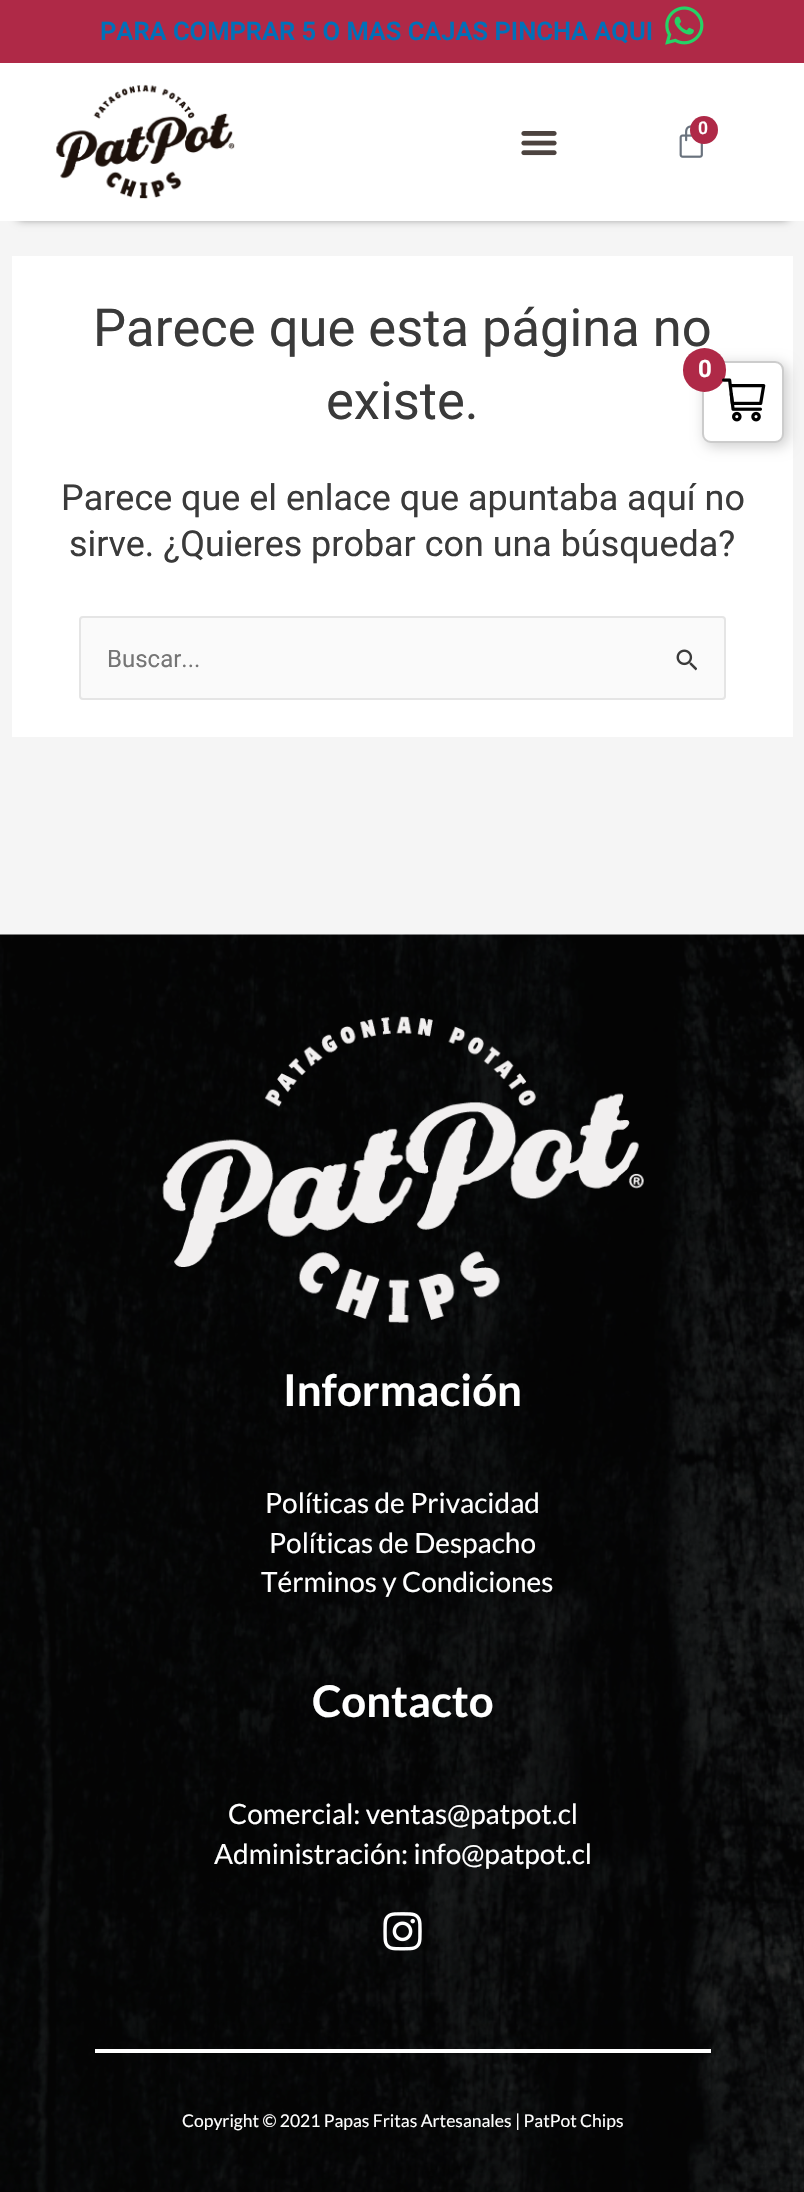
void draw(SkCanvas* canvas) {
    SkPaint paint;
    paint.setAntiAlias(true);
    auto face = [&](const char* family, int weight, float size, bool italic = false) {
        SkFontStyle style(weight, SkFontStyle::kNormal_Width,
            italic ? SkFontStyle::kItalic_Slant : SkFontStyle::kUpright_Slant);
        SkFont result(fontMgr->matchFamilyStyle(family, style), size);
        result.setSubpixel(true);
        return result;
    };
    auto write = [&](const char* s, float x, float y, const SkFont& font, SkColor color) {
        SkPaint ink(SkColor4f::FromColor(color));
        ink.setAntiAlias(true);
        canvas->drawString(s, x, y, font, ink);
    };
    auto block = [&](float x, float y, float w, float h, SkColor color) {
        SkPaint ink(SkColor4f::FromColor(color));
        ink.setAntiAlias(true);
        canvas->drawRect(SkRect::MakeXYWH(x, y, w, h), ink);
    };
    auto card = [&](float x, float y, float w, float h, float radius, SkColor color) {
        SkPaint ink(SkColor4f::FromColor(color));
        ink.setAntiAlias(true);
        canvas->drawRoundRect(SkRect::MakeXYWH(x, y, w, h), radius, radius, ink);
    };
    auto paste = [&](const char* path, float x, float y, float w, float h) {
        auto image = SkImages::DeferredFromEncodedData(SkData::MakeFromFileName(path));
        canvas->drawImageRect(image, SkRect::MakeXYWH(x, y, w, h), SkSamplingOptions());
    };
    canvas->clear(SkColorSetRGB(245, 245, 245));
    block(0, 0, 804, 63, SkColorSetRGB(175, 41, 71));
    auto kFont1 = face("Roboto", 600, 25.5f);
    write("PARA COMPRAR 5 O MAS CAJAS PINCHA AQUI", 100, 40, kFont1, SkColorSetRGB(1, 112, 185));
    paste("pic1.png", 665, 6, 39, 39);
    paint.setColor(SkColorSetARGB(128, 0, 0, 0));
    paint.setMaskFilter(SkMaskFilter::MakeBlur(kNormal_SkBlurStyle, 4.5f));
    canvas->drawRect(SkRect::MakeXYWH(18, 96, 770, 123), paint);
    paint.setMaskFilter(nullptr);
    block(0, 63, 804, 158, SK_ColorWHITE);
    paste("pic2.png", 56, 84, 179, 115);
    paste("pic3.png", 679, 125, 24, 33);
    paint.setColor(SkColorSetRGB(175, 41, 71));
    canvas->drawCircle(704, 130, 14, paint);
    auto kFont2 = face("Roboto", 600, 17.5f);
    write("0", 698, 134, kFont2, SK_ColorWHITE);
    paste("pic4.png", 521, 131, 36, 25);
    block(12, 256, 781, 481, SK_ColorWHITE);
    auto kFont3 = face("Roboto", 400, 52.5f);
    write("Parece que esta página no", 93, 346, kFont3, SkColorSetRGB(58, 58, 58));
    write("existe.", 326, 419, kFont3, SkColorSetRGB(58, 58, 58));
    auto kFont4 = face("Roboto", 400, 35.9f);
    write("Parece que el enlace que apuntaba aquí no", 61, 510, kFont4, SkColorSetRGB(58, 58, 58));
    write("sirve. ¿Quieres probar con una búsqueda?", 69, 556, kFont4, SkColorSetRGB(58, 58, 58));
    paint.setColor(SkColorSetRGB(250, 250, 250));
    canvas->drawRoundRect(SkRect::MakeXYWH(80, 617, 645, 82), 3, 3, paint);
    paint.setStyle(SkPaint::kStroke_Style);
    paint.setStrokeWidth(2);
    paint.setColor(SkColorSetRGB(229, 229, 229));
    canvas->drawRoundRect(SkRect::MakeXYWH(80, 617, 645, 82), 3, 3, paint);
    auto kFont5 = face("Roboto", 400, 24);
    write("Buscar...", 107, 667, kFont5, SkColorSetRGB(117, 117, 117));
    paste("pic5.png", 676, 649, 21, 22);
    paste("pic6.png", 0, 934, 804, 1258);
    paste("pic7.png", 162, 1016, 482, 307);
    auto kFont6 = face("Lato", 700, 43.75f);
    write("Información", 283, 1406, kFont6, SK_ColorWHITE);
    auto kFont7 = face("Lato", 400, 28);
    write("Políticas de Privacidad", 265, 1513, kFont7, SK_ColorWHITE);
    write("Políticas de Despacho", 269, 1553, kFont7, SK_ColorWHITE);
    write("Términos y Condiciones", 261, 1592, kFont7, SK_ColorWHITE);
    write("Contacto", 312, 1717, kFont6, SK_ColorWHITE);
    write("Comercial: ventas@patpot.cl", 228, 1824, kFont7, SK_ColorWHITE);
    write("Administración: info@patpot.cl", 214, 1864, kFont7, SK_ColorWHITE);
    paste("pic8.png", 383, 1912, 39, 39);
    block(95, 2049, 616, 4, SK_ColorWHITE);
    auto kFont8 = face("Lato", 400, 17.5f);
    write("Copyright © 2021 Papas Fritas Artesanales | PatPot Chips", 182, 2127, kFont8, SK_ColorWHITE);
    paint.setStyle(SkPaint::kFill_Style);
    paint.setColor(SkColorSetRGB(204, 204, 204));
    paint.setMaskFilter(SkMaskFilter::MakeBlur(kNormal_SkBlurStyle, 7));
    canvas->drawRoundRect(SkRect::MakeXYWH(705, 364, 83, 82), 9, 9, paint);
    paint.setMaskFilter(nullptr);
    paint.setColor(SK_ColorWHITE);
    canvas->drawRoundRect(SkRect::MakeXYWH(703, 362, 80, 80), 8, 8, paint);
    paint.setStyle(SkPaint::kStroke_Style);
    paint.setColor(SkColorSetRGB(204, 204, 204));
    canvas->drawRoundRect(SkRect::MakeXYWH(703, 362, 80, 80), 8, 8, paint);
    card(683, 348, 43, 44, 21.5f, SkColorSetRGB(175, 41, 71));
    auto kFont9 = face("Roboto", 700, 24);
    write("0", 698, 377, kFont9, SK_ColorWHITE);
    paste("pic9.png", 722, 378, 44, 44);
}
